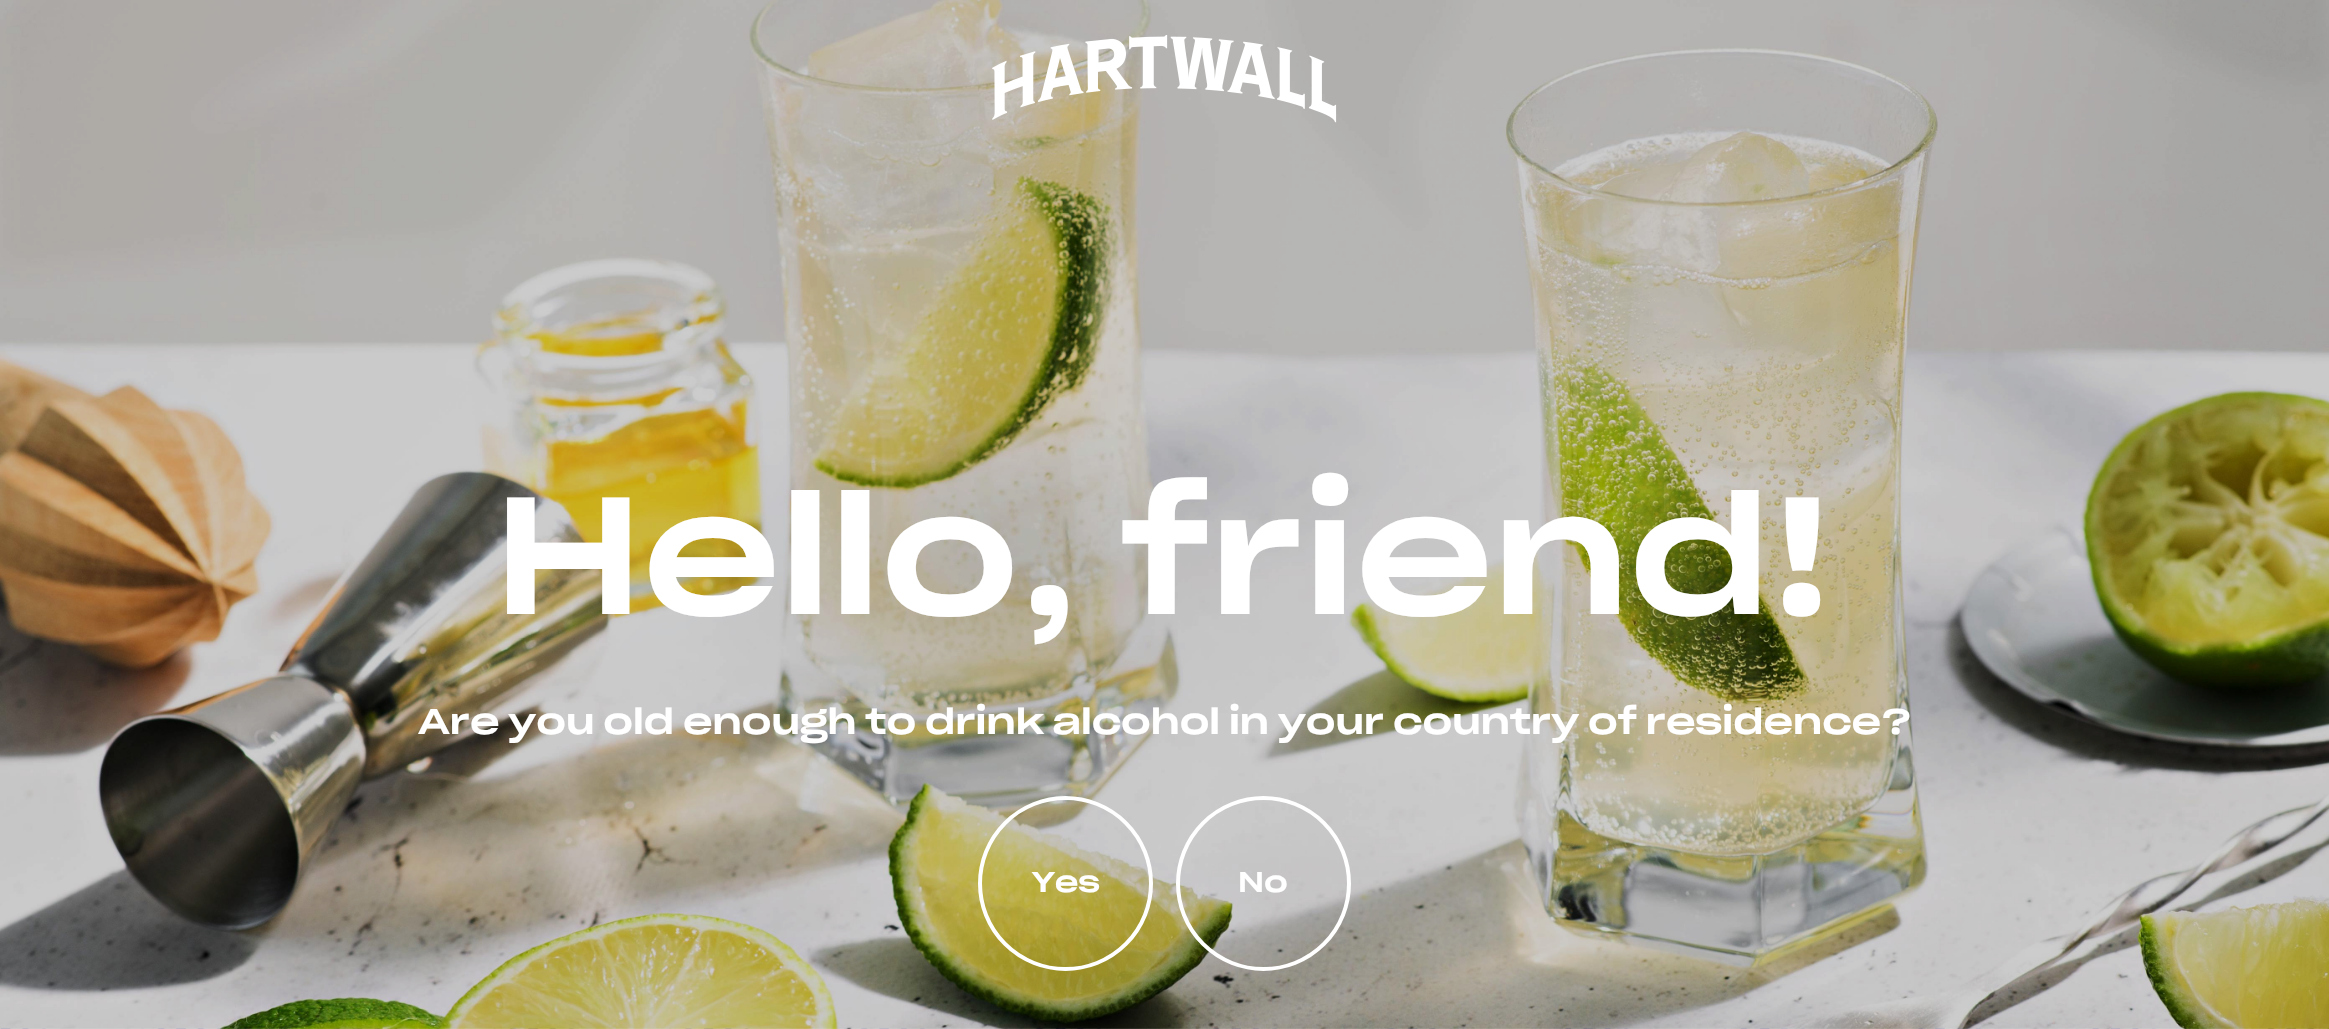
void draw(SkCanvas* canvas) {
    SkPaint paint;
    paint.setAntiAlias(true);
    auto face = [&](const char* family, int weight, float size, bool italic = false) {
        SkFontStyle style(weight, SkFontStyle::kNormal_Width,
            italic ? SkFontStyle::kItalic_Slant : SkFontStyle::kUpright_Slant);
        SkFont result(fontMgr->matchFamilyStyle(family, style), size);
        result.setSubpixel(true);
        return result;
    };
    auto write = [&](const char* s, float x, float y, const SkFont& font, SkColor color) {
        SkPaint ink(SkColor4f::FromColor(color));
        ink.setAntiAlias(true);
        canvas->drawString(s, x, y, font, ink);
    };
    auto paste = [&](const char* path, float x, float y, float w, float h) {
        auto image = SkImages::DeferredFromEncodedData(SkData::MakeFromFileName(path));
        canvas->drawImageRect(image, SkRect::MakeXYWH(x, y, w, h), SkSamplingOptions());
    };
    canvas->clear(SK_ColorWHITE);
    paste("pic3.png", 0, 1028, 2329, 1);
    paste("pic1.png", 0, 0, 2329, 1029);
    paste("pic2.png", 992, 35, 345, 88);
    auto kFont1 = face("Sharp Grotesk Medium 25", 500, 163.25f);
    write("Hello, friend!", 494, 614, kFont1, SK_ColorWHITE);
    auto kFont2 = face("Sharp Grotesk Medium 25", 500, 35);
    write("Are you old enough to drink alcohol in your country of residence?", 418, 734, kFont2, SK_ColorWHITE);
    paint.setStyle(SkPaint::kStroke_Style);
    paint.setStrokeWidth(4);
    paint.setColor(SK_ColorWHITE);
    canvas->drawCircle(1065.5f, 883.5f, 85.5f, paint);
    auto kFont3 = face("Sharp Grotesk Medium 25", 500, 28);
    write("Yes", 1032, 892, kFont3, SK_ColorWHITE);
    canvas->drawCircle(1263.5f, 883.5f, 85.5f, paint);
    write("No", 1238, 892, kFont3, SK_ColorWHITE);
}
